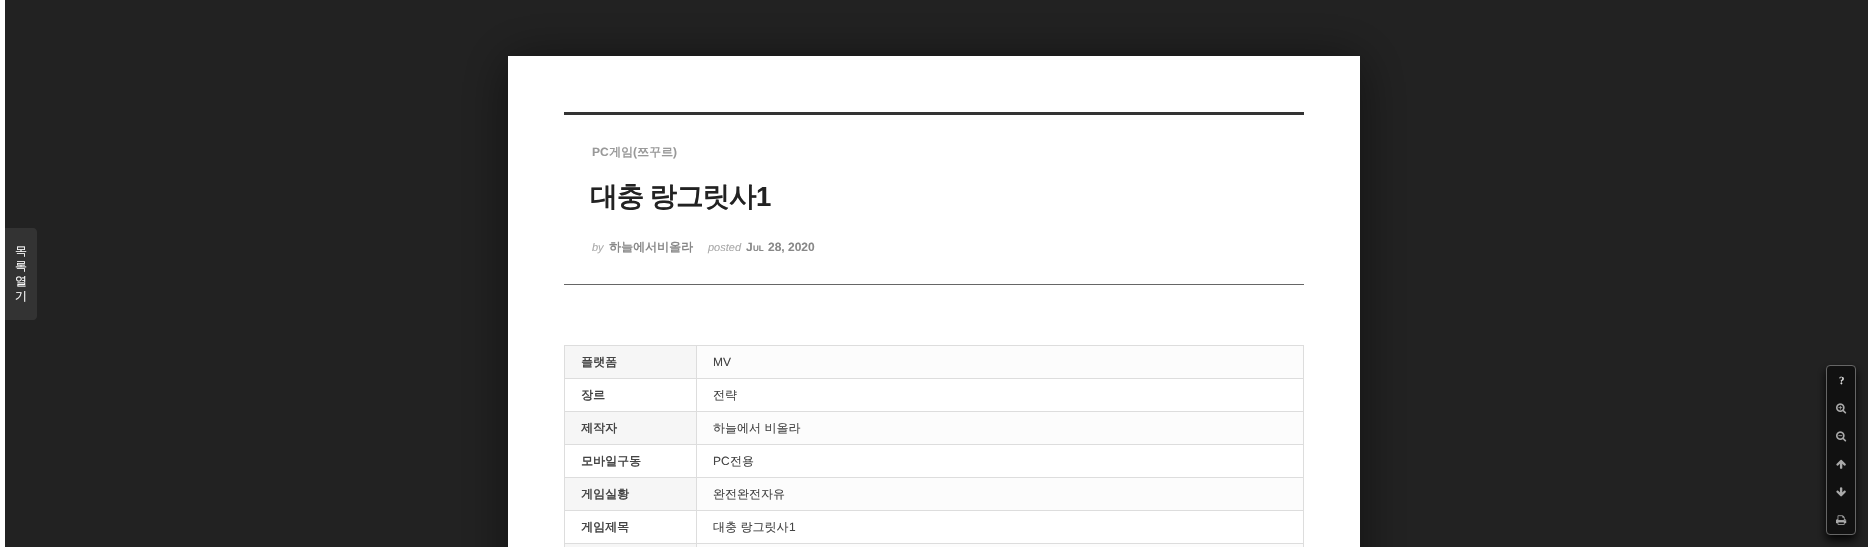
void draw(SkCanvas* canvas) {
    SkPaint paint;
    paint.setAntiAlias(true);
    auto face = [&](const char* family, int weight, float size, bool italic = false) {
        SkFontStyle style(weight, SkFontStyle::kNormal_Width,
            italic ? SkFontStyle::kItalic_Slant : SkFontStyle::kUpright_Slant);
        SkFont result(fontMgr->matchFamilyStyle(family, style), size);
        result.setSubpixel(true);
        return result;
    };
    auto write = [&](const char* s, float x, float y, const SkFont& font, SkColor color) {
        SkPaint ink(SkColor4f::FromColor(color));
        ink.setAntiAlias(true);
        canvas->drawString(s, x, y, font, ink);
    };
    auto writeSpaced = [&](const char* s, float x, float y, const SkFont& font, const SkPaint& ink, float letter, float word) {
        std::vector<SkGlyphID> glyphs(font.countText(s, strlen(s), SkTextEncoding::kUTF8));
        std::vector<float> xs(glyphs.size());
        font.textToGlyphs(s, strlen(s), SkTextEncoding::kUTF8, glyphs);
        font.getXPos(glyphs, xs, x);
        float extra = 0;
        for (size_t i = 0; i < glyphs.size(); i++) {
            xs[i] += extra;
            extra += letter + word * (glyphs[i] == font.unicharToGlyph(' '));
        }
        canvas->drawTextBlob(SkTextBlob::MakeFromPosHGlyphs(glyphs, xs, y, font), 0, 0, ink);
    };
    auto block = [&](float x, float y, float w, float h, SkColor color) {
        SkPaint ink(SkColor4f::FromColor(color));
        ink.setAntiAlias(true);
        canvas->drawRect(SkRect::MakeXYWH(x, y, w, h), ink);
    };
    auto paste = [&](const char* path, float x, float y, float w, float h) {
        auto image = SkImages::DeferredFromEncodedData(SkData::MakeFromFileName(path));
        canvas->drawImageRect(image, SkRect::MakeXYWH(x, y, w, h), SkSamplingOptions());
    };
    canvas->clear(SkColorSetRGB(34, 34, 34));
    paint.setColor(SkColorSetARGB(128, 0, 0, 0));
    paint.setMaskFilter(SkMaskFilter::MakeBlur(kNormal_SkBlurStyle, 24));
    canvas->drawRect(SkRect::MakeXYWH(508, 60, 852, 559), paint);
    paint.setMaskFilter(nullptr);
    block(508, 56, 852, 491, SK_ColorWHITE);
    block(0, 0, 5, 547, SK_ColorWHITE);
    paint.setColor(SkColorSetRGB(51, 51, 51));
    canvas->drawPath(SkPathBuilder().moveTo(5, 228).lineTo(33, 228).cubicTo(35, 228, 37, 230, 37, 232).lineTo(37, 316).cubicTo(37, 318, 35, 320, 33, 320).lineTo(5, 320).close().detach(), paint);
    auto kFont1 = face("WenQuanYi Zen Hei", 500, 12);
    write("목", 15, 255, kFont1, SK_ColorWHITE);
    write("록", 15, 270, kFont1, SK_ColorWHITE);
    write("열", 15, 285, kFont1, SK_ColorWHITE);
    write("기", 15, 300, kFont1, SK_ColorWHITE);
    block(564, 112, 740, 3, SkColorSetRGB(51, 51, 51));
    block(564, 284, 740, 1, SkColorSetRGB(102, 102, 102));
    auto kFont2 = face("Liberation Sans", 700, 12);
    write("PC", 592, 156, kFont2, SkColorSetRGB(153, 153, 153));
    auto kFont3 = face("WenQuanYi Zen Hei", 700, 12);
    write("게임", 609, 156, kFont3, SkColorSetRGB(153, 153, 153));
    write("(", 633, 156, kFont2, SkColorSetRGB(153, 153, 153));
    write("쯔꾸르", 637, 156, kFont3, SkColorSetRGB(153, 153, 153));
    write(")", 673, 156, kFont2, SkColorSetRGB(153, 153, 153));
    auto kFont4 = face("WenQuanYi Zen Hei", 700, 27.5f);
    paint.setColor(SkColorSetRGB(34, 34, 34));
    writeSpaced("대충 랑그릿사", 590, 206, kFont4, paint, -1, -1);
    auto kFont5 = face("Liberation Sans", 700, 27.5f);
    writeSpaced("1", 756, 206, kFont5, paint, -1, 0);
    auto kFont6 = face("Liberation Sans", 400, 11, true);
    write("by", 592, 251, kFont6, SkColorSetRGB(170, 170, 170));
    write("하늘에서비올라", 609, 251, kFont3, SkColorSetRGB(136, 136, 136));
    write("posted", 708, 251, kFont6, SkColorSetRGB(170, 170, 170));
    write("J", 746, 251, kFont2, SkColorSetRGB(136, 136, 136));
    auto kFont7 = face("Liberation Sans", 700, 8);
    write("UL", 753, 251, kFont7, SkColorSetRGB(136, 136, 136));
    write("28, 2020", 768, 251, kFont2, SkColorSetRGB(136, 136, 136));
    paint.setColor(SkColorSetARGB(230, 0, 0, 0));
    paint.setMaskFilter(SkMaskFilter::MakeBlur(kNormal_SkBlurStyle, 5));
    canvas->drawRoundRect(SkRect::MakeXYWH(1826, 370, 30, 170), 4, 4, paint);
    paint.setMaskFilter(nullptr);
    paint.setColor(SkColorSetRGB(17, 17, 17));
    canvas->drawRoundRect(SkRect::MakeXYWH(1826.5f, 365.5f, 29, 169), 3.5f, 3.5f, paint);
    paint.setStyle(SkPaint::kStroke_Style);
    paint.setStrokeWidth(1);
    paint.setColor(SkColorSetRGB(102, 102, 102));
    canvas->drawRoundRect(SkRect::MakeXYWH(1826.5f, 365.5f, 29, 169), 3.5f, 3.5f, paint);
    auto kFont8 = face("Liberation Serif", 700, 11);
    paint.setStyle(SkPaint::kFill_Style);
    paint.setColor(SkColorSetRGB(221, 221, 221));
    writeSpaced("?", 1839, 384, kFont8, paint, -1, 0);
    paste("pic1.png", 1836, 403, 11, 11);
    paste("pic2.png", 1836, 431, 11, 11);
    paste("pic3.png", 1836, 459, 10, 10);
    paste("pic4.png", 1836, 487, 10, 10);
    paste("pic5.png", 1836, 515, 11, 10);
    block(565, 346, 131, 32, SkColorSetRGB(246, 246, 246));
    block(696, 345, 608, 1, SkColorSetRGB(221, 221, 221));
    block(696, 378, 608, 1, SkColorSetRGB(221, 221, 221));
    block(696, 411, 608, 1, SkColorSetRGB(221, 221, 221));
    block(696, 444, 608, 1, SkColorSetRGB(221, 221, 221));
    block(696, 477, 608, 1, SkColorSetRGB(221, 221, 221));
    block(696, 510, 608, 1, SkColorSetRGB(221, 221, 221));
    block(696, 543, 608, 1, SkColorSetRGB(221, 221, 221));
    block(696, 543, 1, 4, SkColorSetRGB(221, 221, 221));
    block(564, 543, 133, 1, SkColorSetRGB(221, 221, 221));
    block(696, 510, 1, 34, SkColorSetRGB(221, 221, 221));
    block(564, 510, 133, 1, SkColorSetRGB(221, 221, 221));
    block(696, 477, 1, 34, SkColorSetRGB(221, 221, 221));
    block(564, 477, 133, 1, SkColorSetRGB(221, 221, 221));
    block(696, 444, 1, 34, SkColorSetRGB(221, 221, 221));
    block(564, 444, 133, 1, SkColorSetRGB(221, 221, 221));
    block(696, 411, 1, 34, SkColorSetRGB(221, 221, 221));
    block(564, 411, 133, 1, SkColorSetRGB(221, 221, 221));
    block(696, 378, 1, 34, SkColorSetRGB(221, 221, 221));
    block(564, 378, 133, 1, SkColorSetRGB(221, 221, 221));
    block(696, 345, 1, 34, SkColorSetRGB(221, 221, 221));
    block(564, 345, 133, 1, SkColorSetRGB(221, 221, 221));
    block(564, 543, 1, 4, SkColorSetRGB(221, 221, 221));
    block(564, 510, 1, 34, SkColorSetRGB(221, 221, 221));
    block(564, 477, 1, 34, SkColorSetRGB(221, 221, 221));
    block(564, 444, 1, 34, SkColorSetRGB(221, 221, 221));
    block(564, 411, 1, 34, SkColorSetRGB(221, 221, 221));
    block(564, 378, 1, 34, SkColorSetRGB(221, 221, 221));
    block(564, 345, 1, 34, SkColorSetRGB(221, 221, 221));
    write("플랫폼", 581, 366, kFont3, SkColorSetRGB(68, 68, 68));
    block(697, 346, 606, 32, SkColorSetRGB(252, 252, 252));
    block(697, 544, 607, 3, SkColorSetRGB(252, 252, 252));
    block(1303, 543, 1, 4, SkColorSetRGB(221, 221, 221));
    block(1303, 510, 1, 34, SkColorSetRGB(221, 221, 221));
    block(1303, 477, 1, 34, SkColorSetRGB(221, 221, 221));
    block(1303, 444, 1, 34, SkColorSetRGB(221, 221, 221));
    block(1303, 411, 1, 34, SkColorSetRGB(221, 221, 221));
    block(1303, 378, 1, 34, SkColorSetRGB(221, 221, 221));
    block(1303, 345, 1, 34, SkColorSetRGB(221, 221, 221));
    auto kFont9 = face("Liberation Sans", 400, 12);
    write("MV", 713, 366, kFont9, SkColorSetRGB(68, 68, 68));
    write("장르", 581, 399, kFont3, SkColorSetRGB(68, 68, 68));
    write("전략", 713, 399, kFont1, SkColorSetRGB(68, 68, 68));
    block(565, 412, 131, 32, SkColorSetRGB(246, 246, 246));
    write("제작자", 581, 432, kFont3, SkColorSetRGB(68, 68, 68));
    block(697, 412, 606, 32, SkColorSetRGB(252, 252, 252));
    write("하늘에서 비올라", 713, 432, kFont1, SkColorSetRGB(68, 68, 68));
    write("모바일구동", 581, 465, kFont3, SkColorSetRGB(68, 68, 68));
    write("PC", 713, 465, kFont9, SkColorSetRGB(68, 68, 68));
    write("전용", 730, 465, kFont1, SkColorSetRGB(68, 68, 68));
    block(565, 478, 131, 32, SkColorSetRGB(246, 246, 246));
    write("게임실황", 581, 498, kFont3, SkColorSetRGB(68, 68, 68));
    block(697, 478, 606, 32, SkColorSetRGB(252, 252, 252));
    write("완전완전자유", 713, 498, kFont1, SkColorSetRGB(68, 68, 68));
    write("게임제목", 581, 531, kFont3, SkColorSetRGB(68, 68, 68));
    write("대충 랑그릿사", 713, 531, kFont1, SkColorSetRGB(68, 68, 68));
    write("1", 789, 531, kFont9, SkColorSetRGB(68, 68, 68));
    block(565, 544, 131, 3, SkColorSetRGB(246, 246, 246));
}
